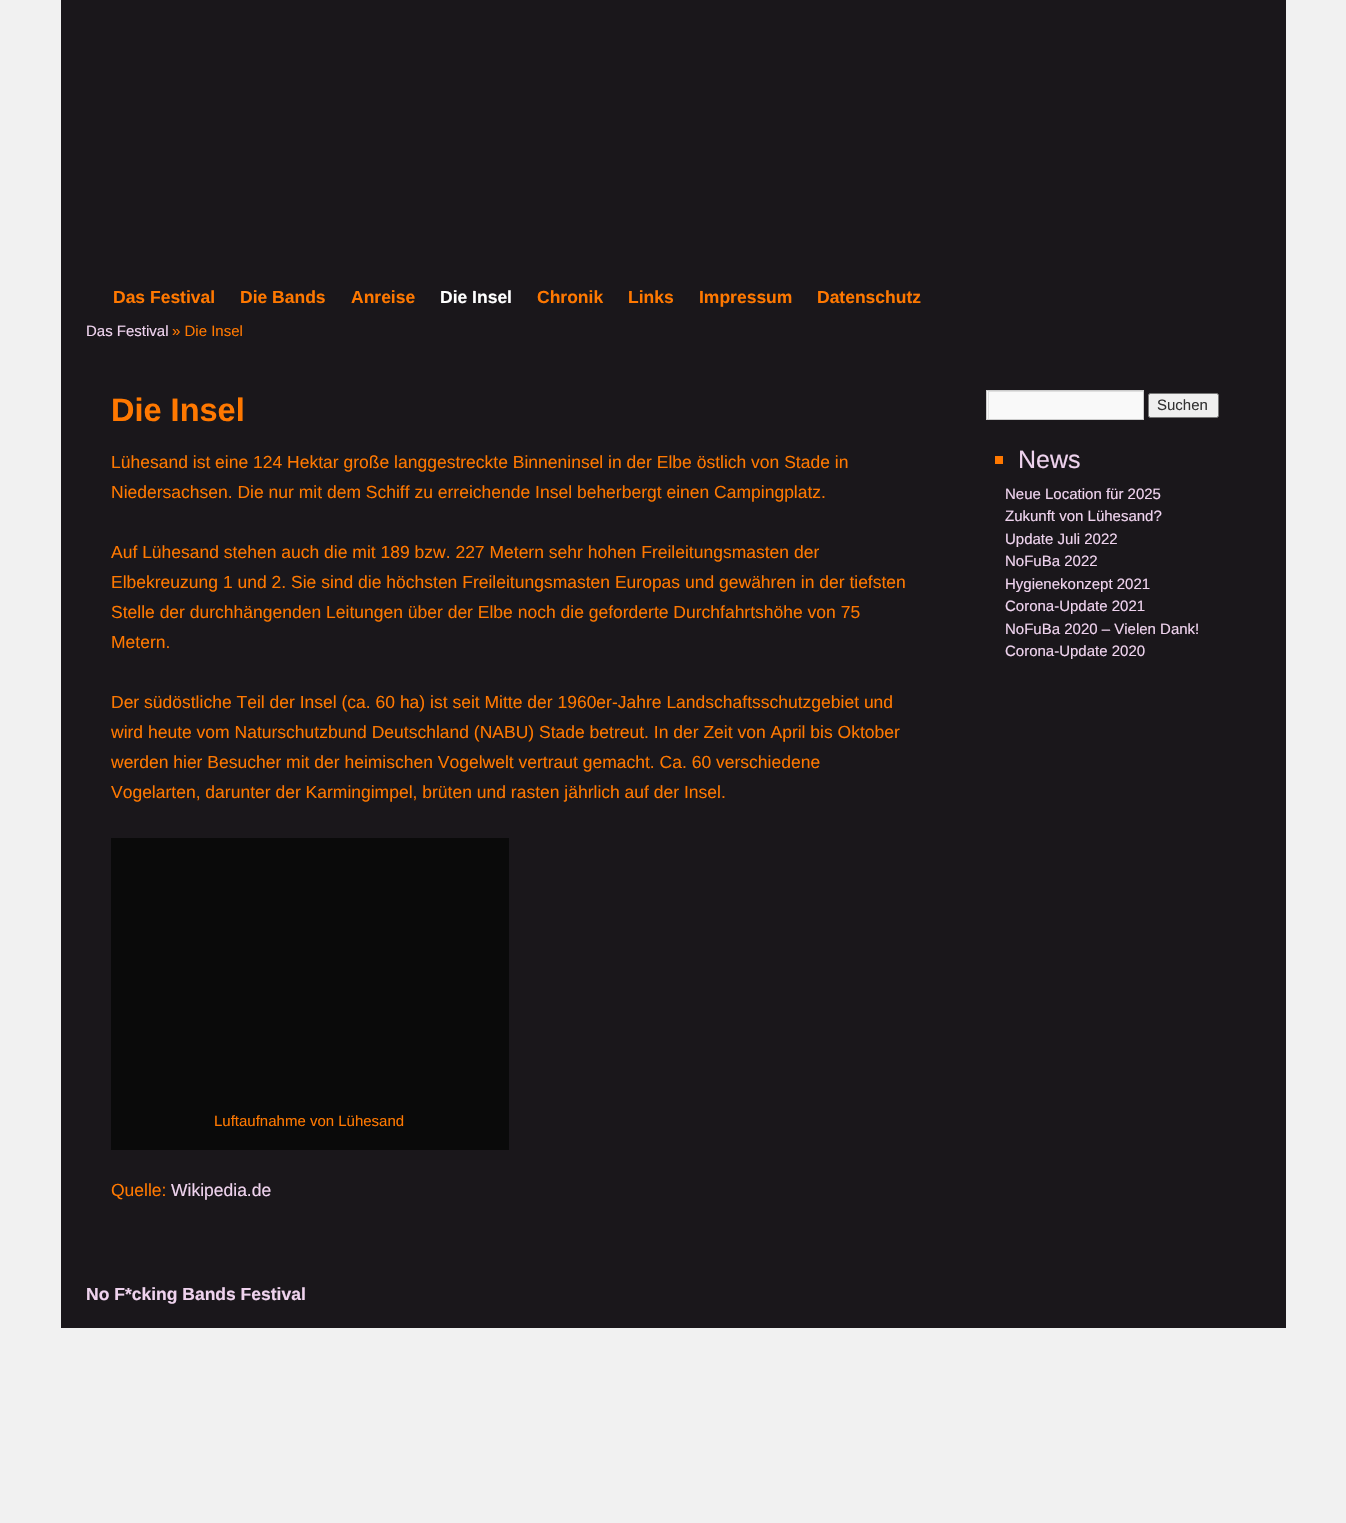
void draw(SkCanvas* canvas) {
    SkPaint paint;
    paint.setAntiAlias(true);
    auto face = [&](const char* family, int weight, float size, bool italic = false) {
        SkFontStyle style(weight, SkFontStyle::kNormal_Width,
            italic ? SkFontStyle::kItalic_Slant : SkFontStyle::kUpright_Slant);
        SkFont result(fontMgr->matchFamilyStyle(family, style), size);
        result.setSubpixel(true);
        return result;
    };
    auto write = [&](const char* s, float x, float y, const SkFont& font, SkColor color) {
        SkPaint ink(SkColor4f::FromColor(color));
        ink.setAntiAlias(true);
        canvas->drawString(s, x, y, font, ink);
    };
    auto block = [&](float x, float y, float w, float h, SkColor color) {
        SkPaint ink(SkColor4f::FromColor(color));
        ink.setAntiAlias(true);
        canvas->drawRect(SkRect::MakeXYWH(x, y, w, h), ink);
    };
    canvas->clear(SkColorSetRGB(241, 241, 241));
    block(61, 0, 1225, 1328, SkColorSetRGB(26, 23, 27));
    auto kFont1 = face("Liberation Sans", 700, 17.5f);
    write("Das Festival", 113, 303, kFont1, SkColorSetRGB(255, 120, 0));
    write("Die Bands", 240, 303, kFont1, SkColorSetRGB(255, 120, 0));
    write("Anreise", 351, 303, kFont1, SkColorSetRGB(255, 120, 0));
    write("Die Insel", 440, 303, kFont1, SK_ColorWHITE);
    write("Chronik", 537, 303, kFont1, SkColorSetRGB(255, 120, 0));
    write("Links", 628, 303, kFont1, SkColorSetRGB(255, 120, 0));
    write("Impressum", 699, 303, kFont1, SkColorSetRGB(255, 120, 0));
    write("Datenschutz", 817, 303, kFont1, SkColorSetRGB(255, 120, 0));
    auto kFont2 = face("Liberation Sans", 400, 15);
    write("Das Festival", 86, 336, kFont2, SkColorSetRGB(239, 211, 238));
    write("» Die Insel", 172, 336, kFont2, SkColorSetRGB(255, 120, 0));
    auto kFont3 = face("Liberation Sans", 700, 32.5f);
    write("Die Insel", 111, 421, kFont3, SkColorSetRGB(255, 120, 0));
    auto kFont4 = face("Liberation Sans", 400, 17.5f);
    write("Lühesand ist eine 124 Hektar große langgestreckte Binneninsel in der Elbe östlich von Stade in", 111, 468, kFont4, SkColorSetRGB(255, 120, 0));
    write("Niedersachsen. Die nur mit dem Schiff zu erreichende Insel beherbergt einen Campingplatz.", 111, 498, kFont4, SkColorSetRGB(255, 120, 0));
    write("Auf Lühesand stehen auch die mit 189 bzw. 227 Metern sehr hohen Freileitungsmasten der", 111, 558, kFont4, SkColorSetRGB(255, 120, 0));
    write("Elbekreuzung 1 und 2. Sie sind die höchsten Freileitungsmasten Europas und gewähren in der tiefsten", 111, 588, kFont4, SkColorSetRGB(255, 120, 0));
    write("Stelle der durchhängenden Leitungen über der Elbe noch die geforderte Durchfahrtshöhe von 75", 111, 618, kFont4, SkColorSetRGB(255, 120, 0));
    write("Metern.", 111, 648, kFont4, SkColorSetRGB(255, 120, 0));
    write("Der südöstliche Teil der Insel (ca. 60 ha) ist seit Mitte der 1960er-Jahre Landschaftsschutzgebiet und", 111, 708, kFont4, SkColorSetRGB(255, 120, 0));
    write("wird heute vom Naturschutzbund Deutschland (NABU) Stade betreut. In der Zeit von April bis Oktober", 111, 738, kFont4, SkColorSetRGB(255, 120, 0));
    write("werden hier Besucher mit der heimischen Vogelwelt vertraut gemacht. Ca. 60 verschiedene", 111, 768, kFont4, SkColorSetRGB(255, 120, 0));
    write("Vogelarten, darunter der Karmingimpel, brüten und rasten jährlich auf der Insel.", 111, 798, kFont4, SkColorSetRGB(255, 120, 0));
    block(111, 838, 398, 312, SkColorSetRGB(10, 10, 10));
    write("Luftaufnahme von Lühesand", 214, 1126, kFont2, SkColorSetRGB(255, 120, 0));
    write("Quelle:", 111, 1196, kFont4, SkColorSetRGB(255, 120, 0));
    write("Wikipedia.de", 171, 1196, kFont4, SkColorSetRGB(239, 211, 238));
    block(987, 391, 156, 28, SkColorSetRGB(249, 249, 249));
    canvas->save();
    canvas->clipRect(SkRect::MakeXYWH(988, 391, 155, 28));
    paint.setColor(SkColorSetRGB(224, 224, 224));
    canvas->drawPath(SkPathBuilder(SkPathFillType::kEvenOdd).moveTo(864, 268).lineTo(1266, 268).lineTo(1266, 542).lineTo(864, 542).close().moveTo(989, 392).lineTo(1144, 392).lineTo(1144, 420).lineTo(989, 420).close().detach(), paint);
    canvas->restore();
    paint.setStyle(SkPaint::kStroke_Style);
    paint.setStrokeWidth(1);
    paint.setColor(SkColorSetRGB(204, 204, 204));
    canvas->drawRect(SkRect::MakeXYWH(986.5f, 390.5f, 157, 29), paint);
    paint.setStyle(SkPaint::kFill_Style);
    paint.setColor(SkColorSetRGB(239, 239, 239));
    canvas->drawRoundRect(SkRect::MakeXYWH(1148.5f, 393.5f, 70, 24), 2, 2, paint);
    paint.setStyle(SkPaint::kStroke_Style);
    paint.setColor(SkColorSetRGB(118, 118, 118));
    canvas->drawRoundRect(SkRect::MakeXYWH(1148.5f, 393.5f, 70, 24), 2, 2, paint);
    write("Suchen", 1157, 410, kFont2, SkColorSetRGB(51, 51, 51));
    block(995, 456, 8, 8, SkColorSetRGB(255, 120, 0));
    auto kFont5 = face("Liberation Sans", 400, 25);
    write("News", 1018, 468, kFont5, SkColorSetRGB(239, 211, 238));
    write("Neue Location für 2025", 1005, 499, kFont2, SkColorSetRGB(239, 211, 238));
    write("Zukunft von Lühesand?", 1005, 521, kFont2, SkColorSetRGB(239, 211, 238));
    write("Update Juli 2022", 1005, 544, kFont2, SkColorSetRGB(239, 211, 238));
    write("NoFuBa 2022", 1005, 566, kFont2, SkColorSetRGB(239, 211, 238));
    write("Hygienekonzept 2021", 1005, 589, kFont2, SkColorSetRGB(239, 211, 238));
    write("Corona-Update 2021", 1005, 611, kFont2, SkColorSetRGB(239, 211, 238));
    write("NoFuBa 2020 – Vielen Dank!", 1005, 634, kFont2, SkColorSetRGB(239, 211, 238));
    write("Corona-Update 2020", 1005, 656, kFont2, SkColorSetRGB(239, 211, 238));
    write("No F*cking Bands Festival", 86, 1300, kFont1, SkColorSetRGB(239, 211, 238));
}
